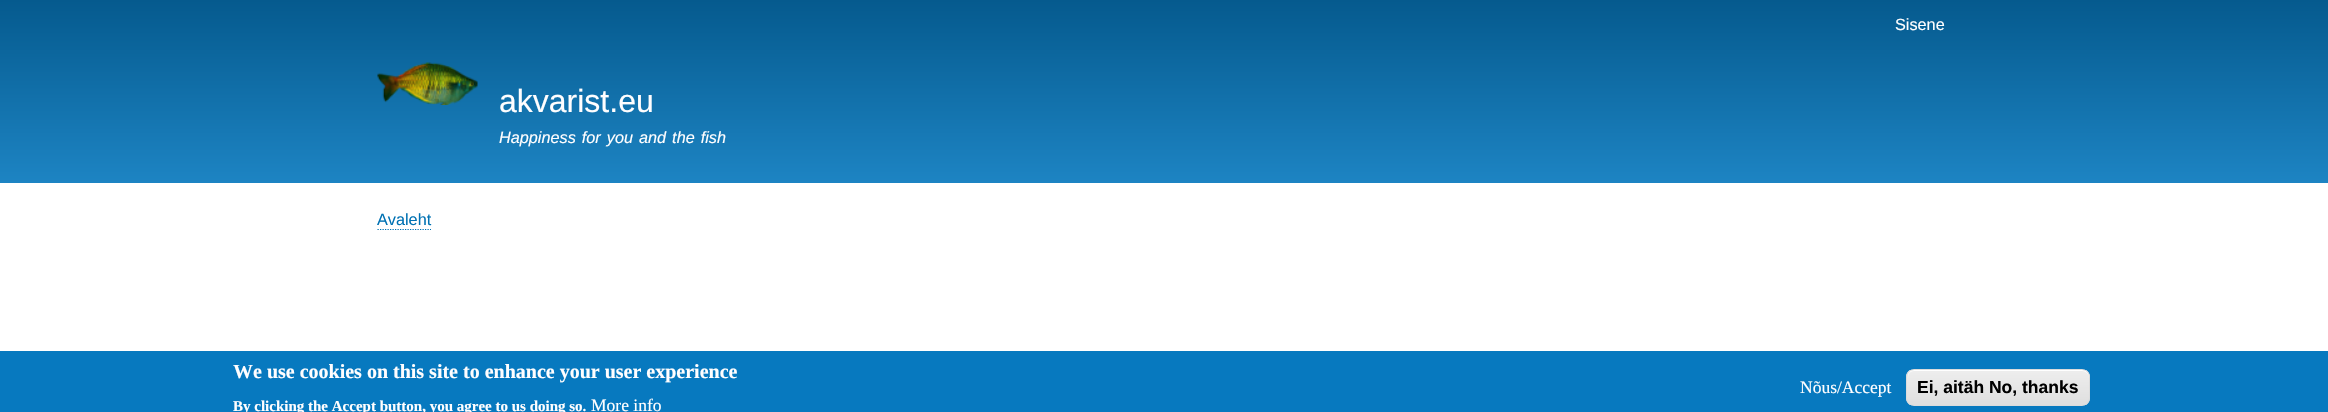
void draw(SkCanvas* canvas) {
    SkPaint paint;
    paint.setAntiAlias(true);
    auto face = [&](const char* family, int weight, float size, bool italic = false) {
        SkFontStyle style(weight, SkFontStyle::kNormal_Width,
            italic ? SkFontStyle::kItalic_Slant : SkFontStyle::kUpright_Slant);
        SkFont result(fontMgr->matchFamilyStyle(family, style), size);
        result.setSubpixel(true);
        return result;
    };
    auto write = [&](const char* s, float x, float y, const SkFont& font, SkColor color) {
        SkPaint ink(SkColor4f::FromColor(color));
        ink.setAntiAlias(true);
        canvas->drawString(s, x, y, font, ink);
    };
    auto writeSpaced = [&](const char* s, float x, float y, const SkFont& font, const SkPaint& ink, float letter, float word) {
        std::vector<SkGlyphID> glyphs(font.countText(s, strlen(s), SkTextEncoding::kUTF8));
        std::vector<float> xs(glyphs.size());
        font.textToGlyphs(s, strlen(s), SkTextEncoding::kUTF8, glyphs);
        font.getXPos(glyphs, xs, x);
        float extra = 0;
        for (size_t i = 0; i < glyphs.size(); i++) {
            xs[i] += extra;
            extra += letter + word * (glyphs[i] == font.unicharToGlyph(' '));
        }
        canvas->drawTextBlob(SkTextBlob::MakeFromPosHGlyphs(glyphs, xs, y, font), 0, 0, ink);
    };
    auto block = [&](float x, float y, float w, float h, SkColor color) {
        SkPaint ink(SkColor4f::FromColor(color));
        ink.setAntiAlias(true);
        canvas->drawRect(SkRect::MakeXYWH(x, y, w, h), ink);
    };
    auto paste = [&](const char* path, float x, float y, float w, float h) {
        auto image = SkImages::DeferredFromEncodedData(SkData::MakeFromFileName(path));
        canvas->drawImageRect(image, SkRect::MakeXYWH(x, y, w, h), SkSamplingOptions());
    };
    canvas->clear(SK_ColorWHITE);
    {
        const SkColor colors[] = {SkColorSetRGB(5, 90, 142), SkColorSetRGB(29, 132, 195)};
        const float stops[] = {0, 1};
        const SkPoint ends[] = {{1164, 0}, {1164, 183}};
        paint.setShader(SkGradientShader::MakeLinear(ends, colors, stops, 2, SkTileMode::kClamp));
        paint.setAlpha(255);
    }
    canvas->drawRect(SkRect::MakeXYWH(0, 0, 2328, 183), paint);
    auto kFont1 = face("Liberation Sans", 400, 16.25f);
    write("Sisene", 1895, 30, kFont1, SkColorSetRGB(255, 254, 255));
    paste("pic1.png", 377, 62, 101, 43);
    auto kFont2 = face("Liberation Sans", 400, 32);
    write("akvarist.eu", 499, 112, kFont2, SkColorSetRGB(255, 254, 255));
    auto kFont3 = face("Liberation Sans", 400, 16.25f, true);
    paint.setShader(nullptr);
    paint.setColor(SkColorSetRGB(255, 254, 255));
    writeSpaced("Happiness for you and the fish", 499, 143, kFont3, paint, 0, 1.5f);
    write("Avaleht", 377, 225, kFont1, SkColorSetRGB(0, 113, 179));
    paint.setStyle(SkPaint::kStroke_Style);
    paint.setStrokeWidth(1.2f);
    paint.setColor(SkColorSetRGB(0, 113, 179));
    paint.setPathEffect(SkDashPathEffect::Make({{1.25f, 1.25f}}, 0));
    canvas->drawPath(SkPathBuilder().moveTo(377.5f, 229.5f).lineTo(431, 229.5f).detach(), paint);
    paint.setPathEffect(nullptr);
    block(0, 351, 2328, 61, SkColorSetRGB(7, 121, 191));
    auto kFont4 = face("Liberation Serif", 700, 20);
    write("We use cookies on this site to enhance your user experience", 233, 378, kFont4, SkColorSetRGB(255, 254, 255));
    auto kFont5 = face("Liberation Serif", 700, 15);
    write("By clicking the Accept button, you agree to us doing so.", 233, 411, kFont5, SkColorSetRGB(255, 254, 255));
    auto kFont6 = face("Liberation Serif", 400, 17.5f);
    write("More info", 591, 411, kFont6, SkColorSetRGB(255, 254, 255));
    write("Nõus/Accept", 1800, 393, kFont6, SkColorSetRGB(255, 254, 255));
    canvas->save();
    canvas->clipPath(SkPathBuilder().moveTo(1914, 369).lineTo(2082, 369).cubicTo(2086.5f, 369, 2090, 372.5f, 2090, 377).lineTo(2090, 398).cubicTo(2090, 402.5f, 2086.5f, 406, 2082, 406).lineTo(1914, 406).cubicTo(1909.5f, 406, 1906, 402.5f, 1906, 398).lineTo(1906, 377).cubicTo(1906, 372.5f, 1909.5f, 369, 1914, 369).close().detach(), true);
    paint.setStyle(SkPaint::kFill_Style);
    {
        const SkColor colors[] = {SkColorSetRGB(237, 237, 237), SkColorSetRGB(223, 223, 223)};
        const float stops[] = {0.05f, 1};
        const SkPoint ends[] = {{1998, 370}, {1998, 405}};
        paint.setShader(SkGradientShader::MakeLinear(ends, colors, stops, 2, SkTileMode::kClamp));
        paint.setAlpha(255);
    }
    canvas->drawRect(SkRect::MakeXYWH(1906, 370, 184, 35), paint);
    canvas->restore();
    paint.setShader(nullptr);
    paint.setColor(SK_ColorWHITE);
    canvas->drawPath(SkPathBuilder().moveTo(1914, 371).lineTo(2082, 371).cubicTo(2086, 371, 2089, 374, 2089, 378).lineTo(2089, 376).cubicTo(2089, 373, 2086, 370, 2083, 370).lineTo(1914, 370).cubicTo(1911, 370, 1908, 373, 1908, 376).lineTo(1908, 378).cubicTo(1908, 374, 1910, 371, 1914, 371).close().detach(), paint);
    paint.setStyle(SkPaint::kStroke_Style);
    paint.setStrokeWidth(1);
    paint.setColor(SkColorSetRGB(220, 220, 220));
    canvas->drawRoundRect(SkRect::MakeXYWH(1906.5f, 369.5f, 183, 36), 7.5f, 7.5f, paint);
    auto kFont7 = face("Liberation Sans", 700, 17.5f);
    write("Ei, aitäh No, thanks", 1917, 393, kFont7, SK_ColorBLACK);
}
